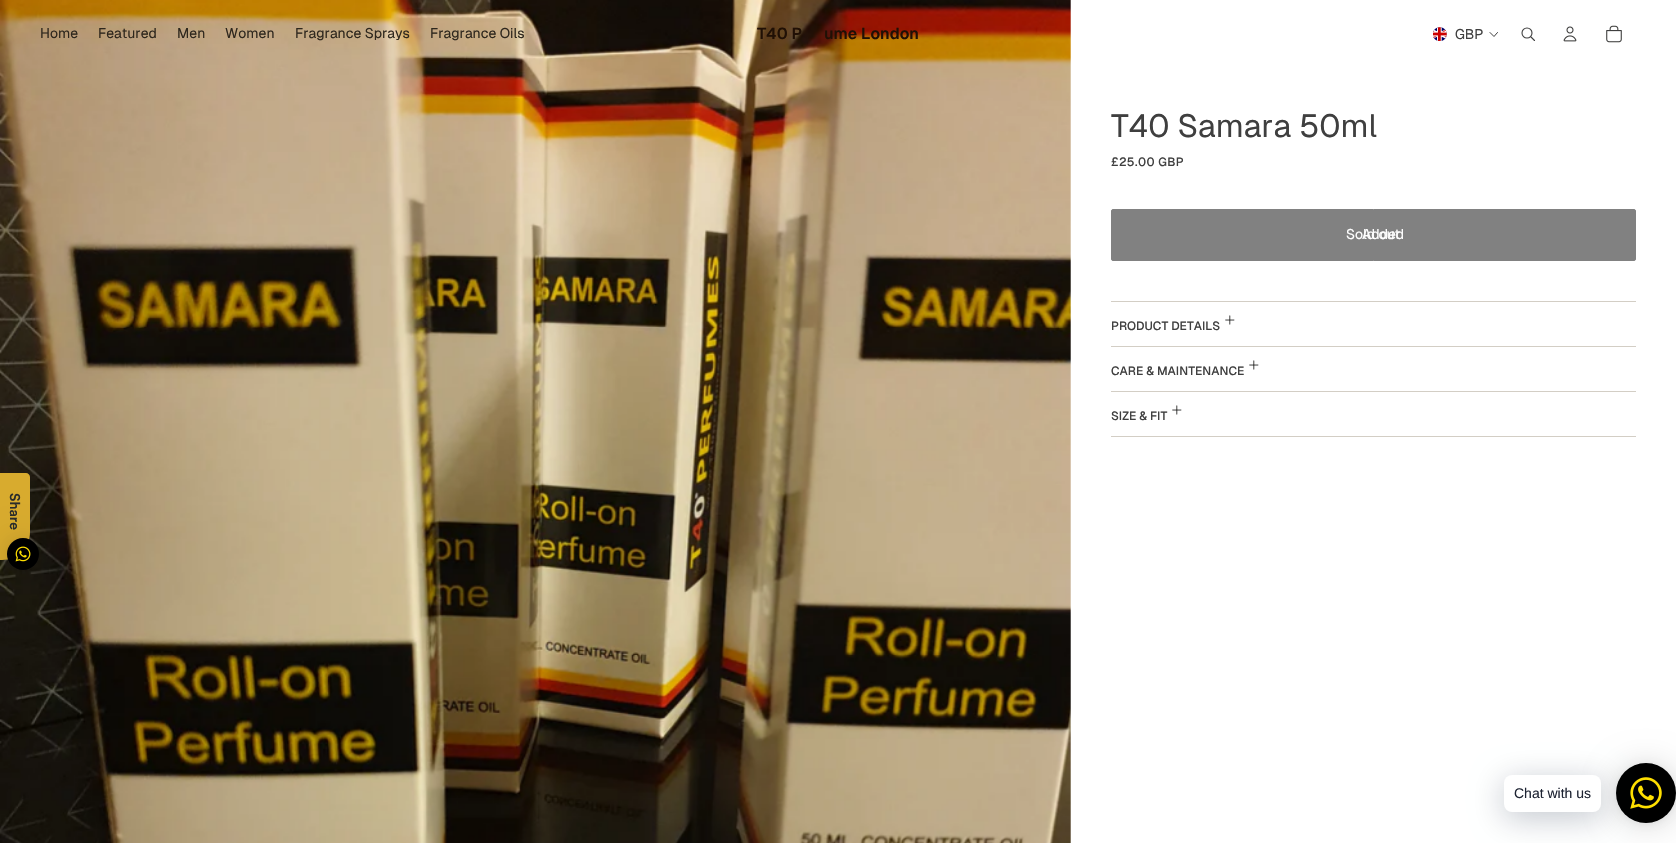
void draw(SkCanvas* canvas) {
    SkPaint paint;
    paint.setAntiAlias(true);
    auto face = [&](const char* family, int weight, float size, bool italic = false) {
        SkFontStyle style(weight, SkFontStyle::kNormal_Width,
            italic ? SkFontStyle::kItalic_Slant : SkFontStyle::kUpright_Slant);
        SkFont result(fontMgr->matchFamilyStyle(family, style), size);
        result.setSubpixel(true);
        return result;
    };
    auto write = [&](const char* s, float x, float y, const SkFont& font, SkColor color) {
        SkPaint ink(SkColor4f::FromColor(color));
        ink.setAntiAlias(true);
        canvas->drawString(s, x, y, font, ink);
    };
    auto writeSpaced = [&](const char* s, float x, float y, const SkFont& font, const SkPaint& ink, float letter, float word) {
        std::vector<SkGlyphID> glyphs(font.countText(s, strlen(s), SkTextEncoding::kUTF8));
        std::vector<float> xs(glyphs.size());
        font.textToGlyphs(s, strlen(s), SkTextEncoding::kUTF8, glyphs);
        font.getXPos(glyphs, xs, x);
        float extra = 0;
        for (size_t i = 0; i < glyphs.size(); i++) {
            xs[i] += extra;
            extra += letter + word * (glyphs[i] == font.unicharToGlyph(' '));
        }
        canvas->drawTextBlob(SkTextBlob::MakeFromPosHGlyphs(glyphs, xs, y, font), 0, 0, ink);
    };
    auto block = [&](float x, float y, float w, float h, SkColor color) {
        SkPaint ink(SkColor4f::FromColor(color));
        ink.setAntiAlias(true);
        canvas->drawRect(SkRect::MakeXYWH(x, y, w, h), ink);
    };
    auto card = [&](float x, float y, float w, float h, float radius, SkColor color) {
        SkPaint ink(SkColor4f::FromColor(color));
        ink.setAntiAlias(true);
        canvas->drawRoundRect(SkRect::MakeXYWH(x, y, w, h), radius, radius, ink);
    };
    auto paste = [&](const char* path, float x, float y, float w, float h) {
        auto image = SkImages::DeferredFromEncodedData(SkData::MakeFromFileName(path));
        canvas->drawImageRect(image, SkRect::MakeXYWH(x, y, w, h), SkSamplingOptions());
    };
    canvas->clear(SK_ColorWHITE);
    paste("pic4.png", 0, 0, 1071, 843);
    auto kFont1 = face("Geist", 400, 14);
    write("Home", 40, 38, kFont1, SkColorSetRGB(46, 39, 29));
    write("Featured", 98, 38, kFont1, SkColorSetRGB(46, 39, 29));
    write("Men", 177, 38, kFont1, SkColorSetRGB(46, 39, 29));
    write("Women", 225, 38, kFont1, SkColorSetRGB(46, 39, 29));
    write("Fragrance Sprays", 295, 38, kFont1, SkColorSetRGB(46, 39, 29));
    write("Fragrance Oils", 430, 38, kFont1, SkColorSetRGB(46, 39, 29));
    auto kFont2 = face("Geist", 600, 16);
    write("T40 P", 757, 39, kFont2, SkColorSetRGB(32, 16, 5));
    write("ume London", 824, 39, kFont2, SkColorSetRGB(32, 16, 5));
    paste("pic1.png", 1433, 27, 14, 14);
    write("GBP", 1455, 39, kFont1, SkColorSetRGB(63, 63, 63));
    paint.setStyle(SkPaint::kStroke_Style);
    paint.setStrokeWidth(1);
    paint.setStrokeCap(SkPaint::kRound_Cap);
    paint.setStrokeJoin(SkPaint::kRound_Join);
    paint.setColor(SkColorSetRGB(63, 63, 63));
    canvas->drawPath(SkPathBuilder().moveTo(1497.5f, 32.5f).lineTo(1494, 36.5f).lineTo(1490, 32.5f).detach(), paint);
    paint.setStrokeWidth(1.1f);
    paint.setStrokeCap(SkPaint::kButt_Cap);
    paint.setStrokeJoin(SkPaint::kMiter_Join);
    canvas->drawCircle(1527, 33, 5, paint);
    paint.setStrokeCap(SkPaint::kRound_Cap);
    paint.setStrokeJoin(SkPaint::kRound_Join);
    canvas->drawPath(SkPathBuilder().moveTo(1531, 37).lineTo(1534.5f, 40.5f).detach(), paint);
    paste("pic2.png", 1563, 26, 14, 16);
    paste("pic3.png", 1606, 25, 16, 18);
    auto kFont3 = face("Geist", 400, 32);
    write("T40 Samara 50ml", 1111, 137, kFont3, SkColorSetRGB(63, 63, 63));
    auto kFont4 = face("Geist", 500, 12);
    paint.setStyle(SkPaint::kFill_Style);
    writeSpaced("£25.00 GBP", 1111, 166, kFont4, paint, 0.4f, 0);
    paint.setColor(SkColorSetRGB(129, 129, 129));
    canvas->drawRoundRect(SkRect::MakeXYWH(1111.5f, 209.5f, 524, 51), 1.5f, 1.5f, paint);
    paint.setStyle(SkPaint::kStroke_Style);
    paint.setStrokeWidth(1);
    paint.setStrokeCap(SkPaint::kButt_Cap);
    paint.setStrokeJoin(SkPaint::kMiter_Join);
    canvas->drawRoundRect(SkRect::MakeXYWH(1111.5f, 209.5f, 524, 51), 1.5f, 1.5f, paint);
    write("Sold out", 1346, 239, kFont1, SK_ColorWHITE);
    write("Added", 1362, 239, kFont1, SK_ColorWHITE);
    block(1111, 301, 525, 1, SkColorSetRGB(211, 206, 197));
    paste("pic5.png", 1225, 315, 10, 10);
    write("PRODUCT DETAILS", 1111, 330, kFont4, SkColorSetRGB(63, 63, 63));
    block(1111, 346, 525, 1, SkColorSetRGB(211, 206, 197));
    paste("pic5.png", 1249, 360, 10, 10);
    write("CARE & MAINTENANCE", 1111, 375, kFont4, SkColorSetRGB(63, 63, 63));
    block(1111, 391, 525, 1, SkColorSetRGB(211, 206, 197));
    block(1111, 436, 525, 1, SkColorSetRGB(211, 206, 197));
    paste("pic5.png", 1172, 405, 10, 10);
    write("SIZE & FIT", 1111, 420, kFont4, SkColorSetRGB(63, 63, 63));
    paint.setStyle(SkPaint::kFill_Style);
    paint.setColor(SkColorSetRGB(216, 171, 46));
    canvas->drawPath(SkPathBuilder().moveTo(0, 560).lineTo(0, 473).lineTo(26, 473).cubicTo(28, 473, 30, 475, 30, 477).lineTo(30, 532).cubicTo(30, 548, 17, 560, 2, 560).close().detach(), paint);
    paint.setColor(SkColorSetARGB(41, 0, 0, 0));
    paint.setMaskFilter(SkMaskFilter::MakeBlur(kNormal_SkBlurStyle, 16));
    canvas->drawRoundRect(SkRect::MakeXYWH(7, 540, 32, 32), 16, 16, paint);
    paint.setMaskFilter(nullptr);
    paint.setColor(SkColorSetARGB(15, 0, 0, 0));
    paint.setMaskFilter(SkMaskFilter::MakeBlur(kNormal_SkBlurStyle, 3));
    canvas->drawRoundRect(SkRect::MakeXYWH(7, 539, 32, 32), 16, 16, paint);
    paint.setMaskFilter(nullptr);
    paint.setColor(SK_ColorBLACK);
    canvas->drawCircle(23, 554, 16, paint);
    paste("pic6.png", 15, 546, 16, 16);
    auto kFont5 = face("Circular", 500, 14);
    canvas->save();
    canvas->rotate(90, 10, 493);
    write("Share", 10, 493, kFont5, SkColorSetRGB(42, 44, 43));
    canvas->restore();
    paint.setColor(SkColorSetARGB(41, 0, 0, 0));
    paint.setMaskFilter(SkMaskFilter::MakeBlur(kNormal_SkBlurStyle, 16));
    canvas->drawRoundRect(SkRect::MakeXYWH(1616, 765, 60, 60), 30, 30, paint);
    paint.setMaskFilter(nullptr);
    paint.setColor(SkColorSetARGB(15, 0, 0, 0));
    paint.setMaskFilter(SkMaskFilter::MakeBlur(kNormal_SkBlurStyle, 3));
    canvas->drawRoundRect(SkRect::MakeXYWH(1616, 764, 60, 60), 30, 30, paint);
    paint.setMaskFilter(nullptr);
    paint.setColor(SK_ColorBLACK);
    canvas->drawCircle(1646, 793, 30, paint);
    paint.setColor(SkColorSetARGB(61, 0, 18, 46));
    paint.setMaskFilter(SkMaskFilter::MakeBlur(kNormal_SkBlurStyle, 16));
    canvas->drawRoundRect(SkRect::MakeXYWH(1504, 781, 97, 37), 8, 8, paint);
    paint.setMaskFilter(nullptr);
    card(1504, 775, 97, 37, 8, SK_ColorWHITE);
    auto kFont6 = face("Liberation Sans", 400, 14);
    write("Chat with us", 1514, 798, kFont6, SkColorSetRGB(30, 36, 51));
    paste("pic7.png", 1630, 777, 32, 32);
}
